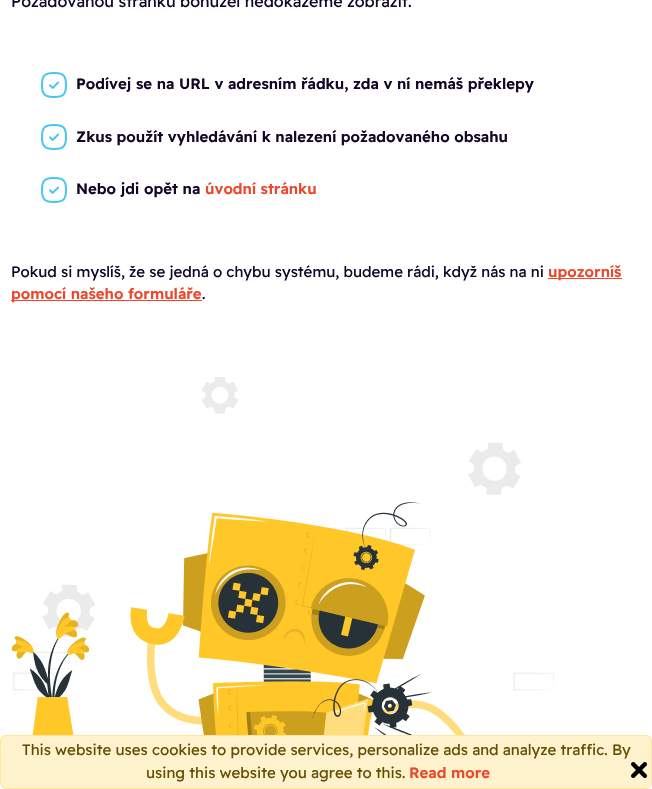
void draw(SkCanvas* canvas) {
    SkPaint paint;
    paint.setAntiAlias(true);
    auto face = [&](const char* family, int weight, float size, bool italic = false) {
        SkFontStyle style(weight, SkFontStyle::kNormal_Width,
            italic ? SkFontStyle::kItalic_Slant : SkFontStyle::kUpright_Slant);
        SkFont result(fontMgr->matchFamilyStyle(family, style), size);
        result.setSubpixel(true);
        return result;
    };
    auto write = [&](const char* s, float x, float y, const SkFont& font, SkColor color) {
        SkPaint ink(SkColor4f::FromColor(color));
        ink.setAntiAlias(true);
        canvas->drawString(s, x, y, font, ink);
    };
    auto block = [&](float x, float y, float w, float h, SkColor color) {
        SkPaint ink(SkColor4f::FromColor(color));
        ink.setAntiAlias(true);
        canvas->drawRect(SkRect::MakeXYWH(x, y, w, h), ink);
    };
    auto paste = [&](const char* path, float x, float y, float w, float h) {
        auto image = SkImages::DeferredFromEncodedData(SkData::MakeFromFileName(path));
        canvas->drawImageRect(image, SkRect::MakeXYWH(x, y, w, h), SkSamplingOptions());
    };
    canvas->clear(SK_ColorWHITE);
    auto kFont1 = face("Readex Pro", 400, 16);
    write("Požadovanou stránku bohužel nedokážeme zobrazit.", 11, 7, kFont1, SkColorSetRGB(18, 5, 38));
    paste("pic1.png", 41, 72, 26, 26);
    auto kFont2 = face("Readex Pro", 600, 15);
    write("Podívej se na URL v adresním řádku, zda v ní nemáš překlepy", 76, 89, kFont2, SkColorSetRGB(18, 5, 38));
    paste("pic1.png", 41, 124, 26, 26);
    write("Zkus použít vyhledávání k nalezení požadovaného obsahu", 76, 142, kFont2, SkColorSetRGB(18, 5, 38));
    paste("pic1.png", 41, 177, 26, 26);
    write("Nebo jdi opět na", 76, 194, kFont2, SkColorSetRGB(18, 5, 38));
    write("úvodní stránku", 205, 194, kFont2, SkColorSetRGB(237, 71, 43));
    auto kFont3 = face("Readex Pro", 400, 15);
    write("Pokud si myslíš, že se jedná o chybu systému, budeme rádi, když nás na ni", 11, 277, kFont3, SkColorSetRGB(18, 5, 38));
    block(548, 278, 74, 1, SkColorSetRGB(237, 71, 43));
    write("upozorníš", 548, 277, kFont2, SkColorSetRGB(237, 71, 43));
    block(11, 300, 191, 1, SkColorSetRGB(237, 71, 43));
    write("pomocí našeho formuláře", 11, 299, kFont2, SkColorSetRGB(237, 71, 43));
    write(".", 202, 299, kFont3, SkColorSetRGB(18, 5, 38));
    paste("pic2.png", 11, 377, 543, 358);
    paint.setColor(SkColorSetRGB(255, 243, 205));
    canvas->drawRoundRect(SkRect::MakeXYWH(0.5f, 735.5f, 651, 53), 5.5f, 5.5f, paint);
    paint.setStyle(SkPaint::kStroke_Style);
    paint.setStrokeWidth(1);
    paint.setColor(SkColorSetRGB(255, 230, 156));
    canvas->drawRoundRect(SkRect::MakeXYWH(0.5f, 735.5f, 651, 53), 5.5f, 5.5f, paint);
    write("This website uses cookies to provide services, personalize ads and analyze traffic. By", 22, 755, kFont3, SkColorSetRGB(102, 77, 3));
    write("using this website you agree to this.", 146, 778, kFont3, SkColorSetRGB(102, 77, 3));
    write("Read more", 409, 778, kFont2, SkColorSetRGB(237, 71, 43));
    paste("pic3.png", 631, 762, 16, 16);
}
